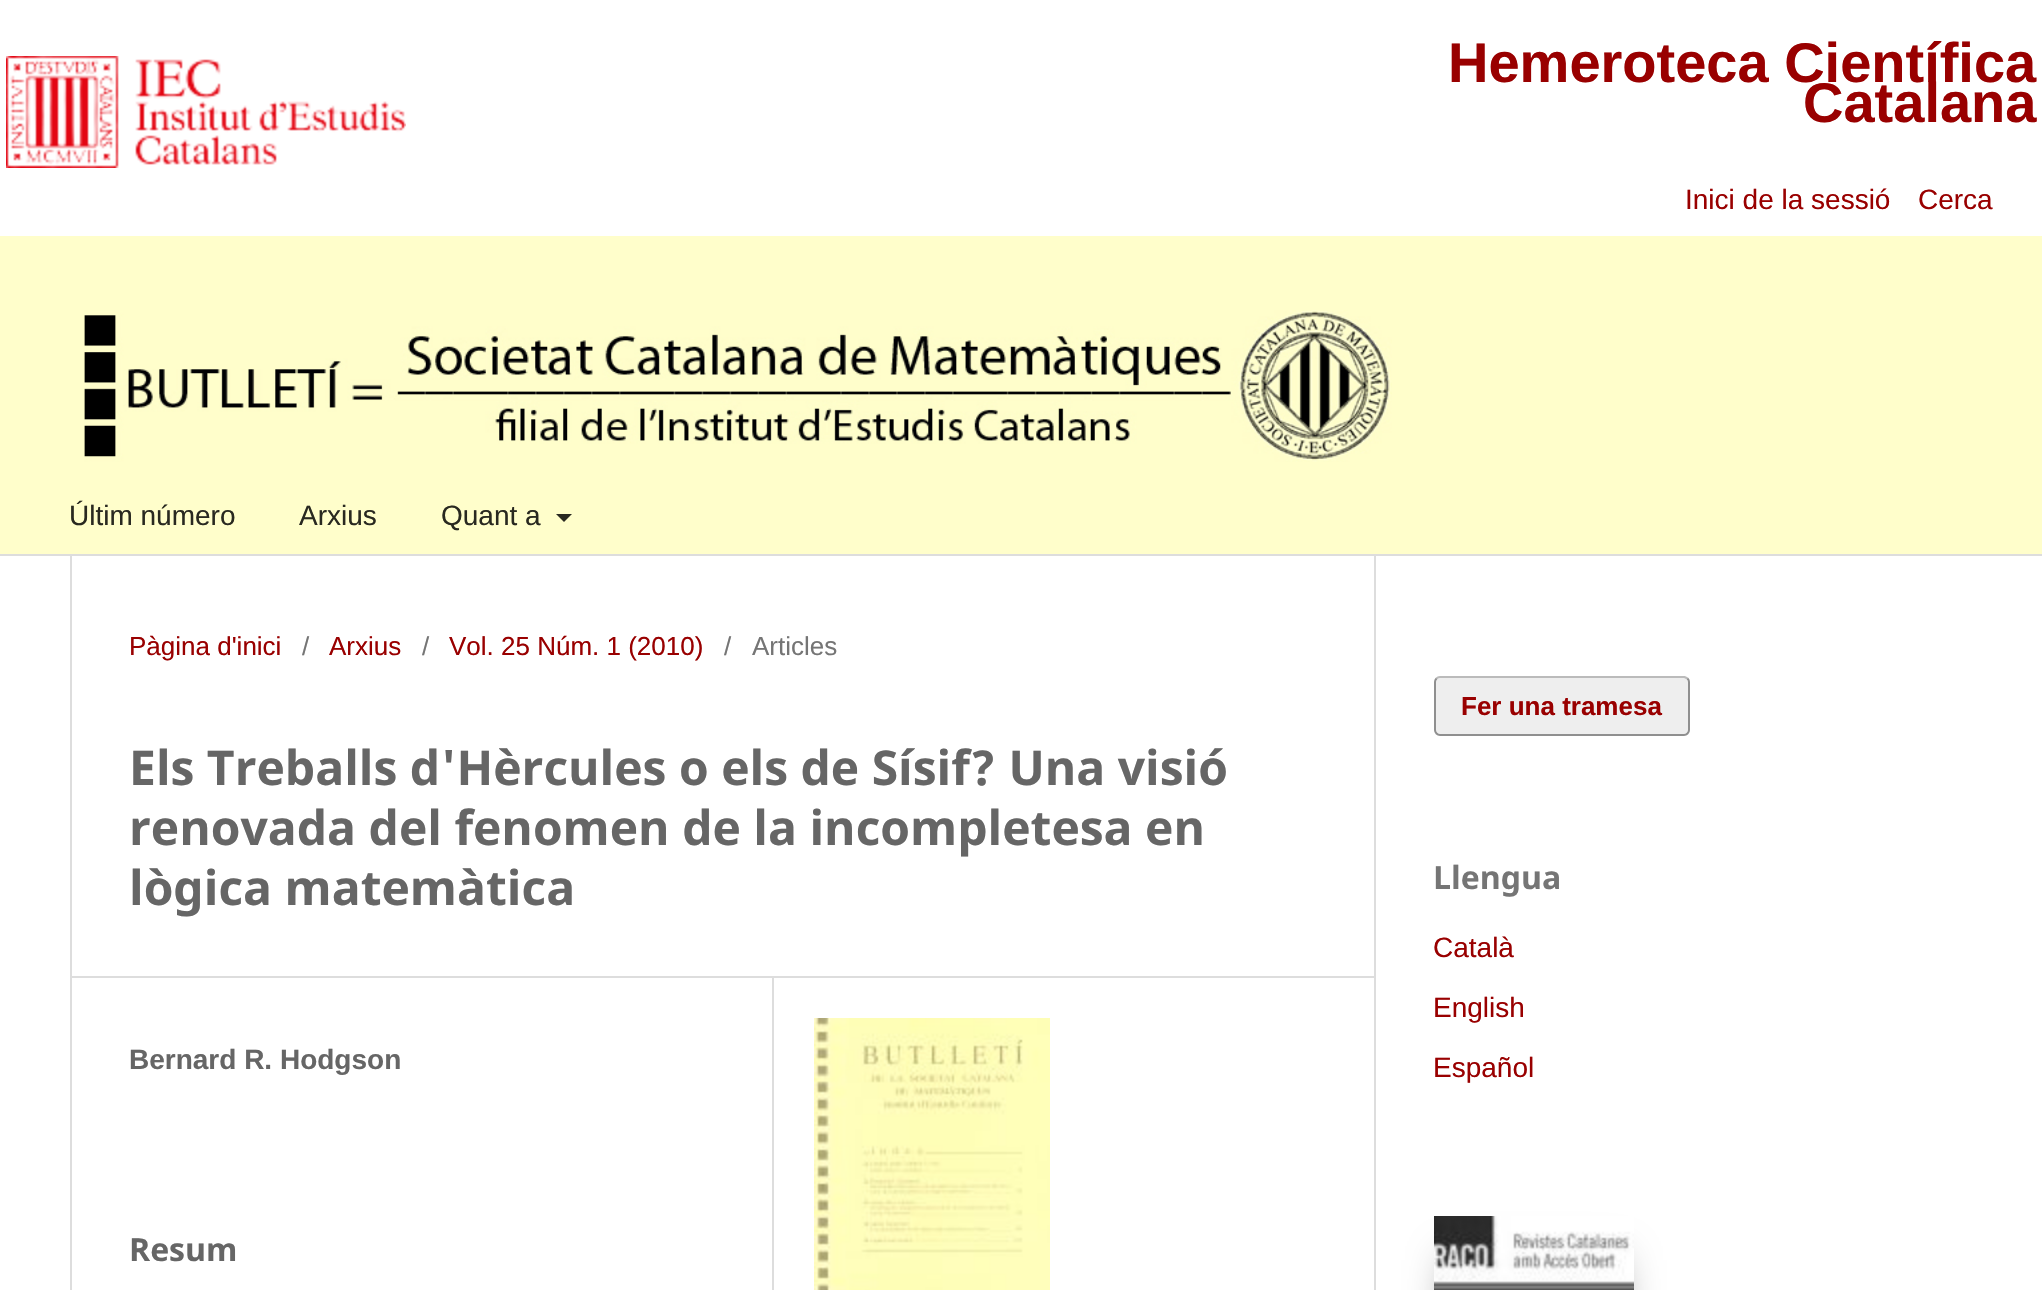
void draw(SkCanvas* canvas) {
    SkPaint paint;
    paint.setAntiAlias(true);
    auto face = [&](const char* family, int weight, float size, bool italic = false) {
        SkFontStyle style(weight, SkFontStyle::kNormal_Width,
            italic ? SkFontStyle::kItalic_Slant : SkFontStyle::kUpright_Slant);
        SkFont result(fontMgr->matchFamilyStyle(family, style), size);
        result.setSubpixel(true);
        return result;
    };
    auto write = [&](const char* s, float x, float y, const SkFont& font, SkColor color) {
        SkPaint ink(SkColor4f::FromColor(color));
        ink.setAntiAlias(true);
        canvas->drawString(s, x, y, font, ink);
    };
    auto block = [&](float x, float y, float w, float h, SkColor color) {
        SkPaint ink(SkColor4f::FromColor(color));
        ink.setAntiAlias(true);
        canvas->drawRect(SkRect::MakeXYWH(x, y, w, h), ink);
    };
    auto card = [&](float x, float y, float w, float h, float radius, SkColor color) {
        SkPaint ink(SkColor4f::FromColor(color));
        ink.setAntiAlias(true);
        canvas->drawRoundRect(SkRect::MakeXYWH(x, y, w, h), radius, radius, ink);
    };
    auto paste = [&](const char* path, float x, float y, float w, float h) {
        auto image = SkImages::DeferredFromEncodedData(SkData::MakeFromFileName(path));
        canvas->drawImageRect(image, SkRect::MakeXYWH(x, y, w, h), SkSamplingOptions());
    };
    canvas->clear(SK_ColorWHITE);
    paste("pic1.png", 6, 56, 400, 112);
    auto kFont1 = face("Liberation Sans", 700, 56);
    write("Hemeroteca Científica", 1448, 82, kFont1, SkColorSetRGB(153, 0, 0));
    write("Catalana", 1803, 122, kFont1, SkColorSetRGB(153, 0, 0));
    auto kFont2 = face("Liberation Sans", 400, 28);
    write("Inici de la sessió", 1685, 209, kFont2, SkColorSetRGB(153, 0, 0));
    write("Cerca", 1918, 209, kFont2, SkColorSetRGB(153, 0, 0));
    block(0, 236, 2042, 318, SkColorSetRGB(255, 254, 203));
    block(0, 554, 2042, 2, SkColorSetRGB(221, 221, 221));
    paste("pic2.png", 84, 310, 1308, 152);
    write("Últim número", 69, 525, kFont2, SkColorSetRGB(41, 41, 32));
    write("Arxius", 299, 525, kFont2, SkColorSetRGB(41, 41, 32));
    write("Quant a", 441, 525, kFont2, SkColorSetRGB(41, 41, 32));
    paint.setColor(SkColorSetRGB(41, 41, 32));
    canvas->drawPath(SkPathBuilder().moveTo(556, 514).lineTo(572, 514).lineTo(564, 522).close().detach(), paint);
    block(70, 976, 1304, 2, SkColorSetRGB(221, 221, 221));
    block(70, 556, 2, 734, SkColorSetRGB(221, 221, 221));
    auto kFont3 = face("Liberation Sans", 400, 26);
    write("Pàgina d'inici", 129, 655, kFont3, SkColorSetRGB(153, 0, 0));
    write("/", 302, 655, kFont3, SkColorSetRGB(117, 117, 117));
    write("Arxius", 329, 655, kFont3, SkColorSetRGB(153, 0, 0));
    write("/", 422, 655, kFont3, SkColorSetRGB(117, 117, 117));
    write("Vol. 25 Núm. 1 (2010)", 449, 655, kFont3, SkColorSetRGB(153, 0, 0));
    write("/", 724, 655, kFont3, SkColorSetRGB(117, 117, 117));
    write("Articles", 752, 655, kFont3, SkColorSetRGB(117, 117, 117));
    auto kFont4 = face("Noto Sans", 700, 48);
    write("Els Treballs d'Hèrcules o els de Sísif? Una visió", 129, 785, kFont4, SkColorSetRGB(102, 102, 102));
    write("renovada del fenomen de la incompletesa en", 129, 845, kFont4, SkColorSetRGB(102, 102, 102));
    write("lògica matemàtica", 129, 905, kFont4, SkColorSetRGB(102, 102, 102));
    block(772, 978, 2, 312, SkColorSetRGB(221, 221, 221));
    auto kFont5 = face("Liberation Sans", 700, 28);
    write("Bernard R. Hodgson", 129, 1069, kFont5, SkColorSetRGB(102, 102, 102));
    auto kFont6 = face("Noto Sans", 700, 32);
    write("Resum", 129, 1261, kFont6, SkColorSetRGB(102, 102, 102));
    paste("pic3.png", 814, 1018, 236, 272);
    block(1374, 556, 2, 734, SkColorSetRGB(221, 221, 221));
    card(1434, 676, 256, 60, 6, SkColorSetRGB(238, 238, 238));
    paint.setStyle(SkPaint::kStroke_Style);
    paint.setStrokeWidth(2);
    paint.setColor(SkColorSetRGB(187, 187, 187));
    canvas->drawPath(SkPathBuilder().moveTo(1436.5f, 678.5f).cubicTo(1437.5f, 677.5f, 1438.5f, 677, 1440, 677).lineTo(1684.5f, 677).lineTo(1687.5f, 678.5f).detach(), paint);
    paint.setColor(SkColorSetARGB(102, 0, 0, 0));
    canvas->drawPath(SkPathBuilder().moveTo(1687.5f, 678.5f).cubicTo(1688.5f, 679.5f, 1689, 680.5f, 1689, 682).lineTo(1689, 730).cubicTo(1689, 731.5f, 1688.5f, 732.5f, 1687.5f, 733.5f).cubicTo(1686.5f, 734.5f, 1685.5f, 735, 1684, 735).lineTo(1440, 735).cubicTo(1438.5f, 735, 1437.5f, 734.5f, 1436.5f, 733.5f).cubicTo(1435.5f, 732.5f, 1435, 731.5f, 1435, 730).lineTo(1435, 682).cubicTo(1435, 680.5f, 1435.5f, 679.5f, 1436.5f, 678.5f).detach(), paint);
    auto kFont7 = face("Liberation Sans", 700, 26);
    write("Fer una tramesa", 1461, 715, kFont7, SkColorSetRGB(153, 0, 0));
    write("Llengua", 1433, 889, kFont6, SkColorSetRGB(117, 117, 117));
    write("Català", 1433, 957, kFont2, SkColorSetRGB(153, 0, 0));
    write("English", 1433, 1017, kFont2, SkColorSetRGB(153, 0, 0));
    write("Español", 1433, 1077, kFont2, SkColorSetRGB(153, 0, 0));
    paint.setStyle(SkPaint::kFill_Style);
    paint.setColor(SkColorSetARGB(115, 0, 0, 0));
    paint.setMaskFilter(SkMaskFilter::MakeBlur(kNormal_SkBlurStyle, 20));
    canvas->drawRect(SkRect::MakeXYWH(1450, 1260, 168, 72), paint);
    paint.setMaskFilter(nullptr);
    paste("pic4.png", 1434, 1216, 200, 74);
}
